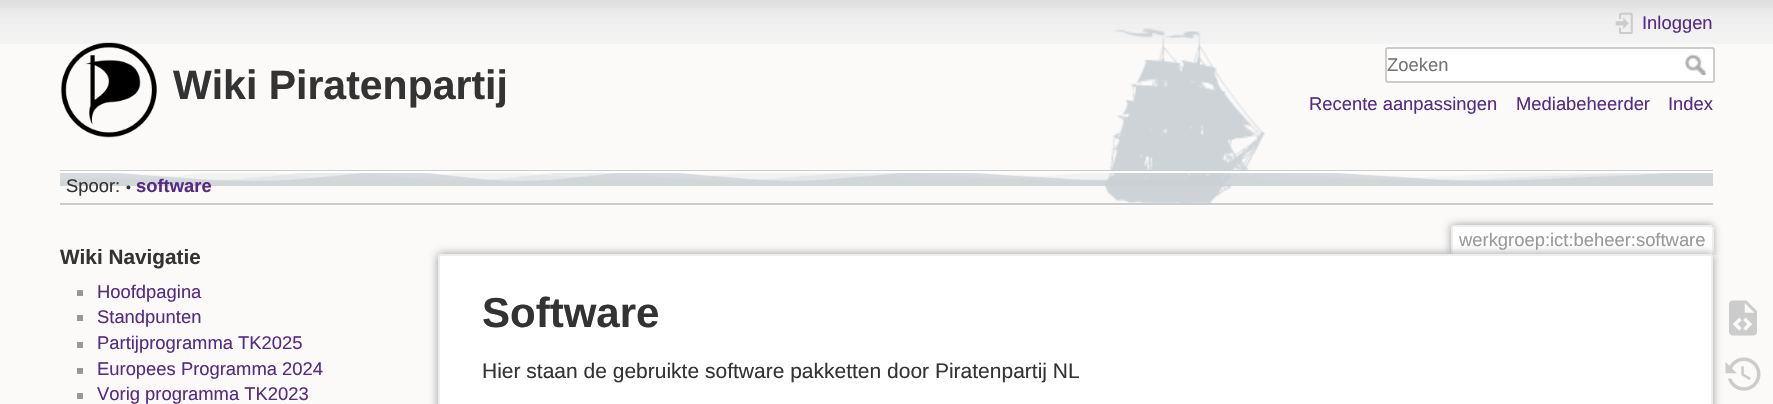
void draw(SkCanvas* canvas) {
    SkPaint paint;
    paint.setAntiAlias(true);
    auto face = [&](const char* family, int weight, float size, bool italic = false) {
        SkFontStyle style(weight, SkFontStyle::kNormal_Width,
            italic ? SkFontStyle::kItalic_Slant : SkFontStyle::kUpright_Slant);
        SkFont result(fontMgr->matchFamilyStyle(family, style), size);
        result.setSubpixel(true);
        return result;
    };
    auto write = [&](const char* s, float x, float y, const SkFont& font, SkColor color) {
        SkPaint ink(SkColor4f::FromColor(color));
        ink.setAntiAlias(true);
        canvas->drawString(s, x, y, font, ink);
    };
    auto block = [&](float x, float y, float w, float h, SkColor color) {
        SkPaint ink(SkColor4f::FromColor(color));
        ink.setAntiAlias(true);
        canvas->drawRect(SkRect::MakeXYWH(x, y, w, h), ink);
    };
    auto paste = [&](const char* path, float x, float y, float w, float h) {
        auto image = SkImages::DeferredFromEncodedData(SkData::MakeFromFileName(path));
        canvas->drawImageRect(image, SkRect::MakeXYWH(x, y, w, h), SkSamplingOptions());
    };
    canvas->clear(SkColorSetRGB(251, 250, 249));
    paste("pic1.png", 0, 0, 1773, 44);
    paste("pic2.png", 1104, 28, 161, 175);
    paste("pic3.png", 60, 169, 1653, 17);
    paste("pic4.png", 60, 42, 97, 96);
    auto kFont1 = face("Liberation Sans", 700, 41);
    write("Wiki Piratenpartij", 173, 99, kFont1, SkColorSetRGB(51, 51, 51));
    paste("pic5.png", 1615, 12, 18, 22);
    auto kFont2 = face("Liberation Sans", 400, 18.4f);
    write("Inloggen", 1642, 29, kFont2, SkColorSetRGB(87, 43, 133));
    paint.setColor(SK_ColorWHITE);
    canvas->drawRoundRect(SkRect::MakeXYWH(1386, 48, 328, 34), 2, 2, paint);
    paint.setStyle(SkPaint::kStroke_Style);
    paint.setStrokeWidth(2);
    paint.setColor(SkColorSetRGB(204, 204, 204));
    canvas->drawRoundRect(SkRect::MakeXYWH(1386, 48, 328, 34), 2, 2, paint);
    write("Zoeken", 1387, 71, kFont2, SkColorSetRGB(117, 117, 117));
    paste("pic6.png", 1684, 54, 22, 21);
    write("Recente aanpassingen", 1309, 110, kFont2, SkColorSetRGB(87, 43, 133));
    write("Mediabeheerder", 1516, 110, kFont2, SkColorSetRGB(87, 43, 133));
    write("Index", 1668, 110, kFont2, SkColorSetRGB(87, 43, 133));
    block(60, 170, 1653, 1, SkColorSetRGB(204, 204, 204));
    block(60, 205, 1653, 1, SK_ColorWHITE);
    block(60, 171, 1653, 2, SK_ColorWHITE);
    block(60, 203, 1653, 2, SkColorSetRGB(204, 204, 204));
    write("Spoor:", 66, 192, kFont2, SkColorSetRGB(51, 51, 51));
    auto kFont3 = face("Liberation Sans", 400, 14);
    write("•", 126, 192, kFont3, SkColorSetRGB(51, 51, 51));
    auto kFont4 = face("Liberation Sans", 700, 18.4f);
    write("software", 136, 192, kFont4, SkColorSetRGB(87, 43, 133));
    auto kFont5 = face("Liberation Sans", 700, 20.75f);
    write("Wiki Navigatie", 60, 264, kFont5, SkColorSetRGB(51, 51, 51));
    block(77, 290, 6, 6, SkColorSetRGB(153, 153, 153));
    write("Hoofdpagina", 97, 298, kFont2, SkColorSetRGB(87, 43, 133));
    block(77, 315, 6, 6, SkColorSetRGB(153, 153, 153));
    write("Standpunten", 97, 323, kFont2, SkColorSetRGB(87, 43, 133));
    block(77, 342, 6, 6, SkColorSetRGB(153, 153, 153));
    write("Partijprogramma TK2025", 97, 349, kFont2, SkColorSetRGB(87, 43, 133));
    block(77, 368, 6, 6, SkColorSetRGB(153, 153, 153));
    write("Europees Programma 2024", 97, 375, kFont2, SkColorSetRGB(87, 43, 133));
    block(77, 393, 6, 6, SkColorSetRGB(153, 153, 153));
    write("Vorig programma TK2023", 97, 400, kFont2, SkColorSetRGB(87, 43, 133));
    canvas->save();
    canvas->clipRect(SkRect::MakeXYWH(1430, 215, 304, 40));
    paint.setStyle(SkPaint::kFill_Style);
    paint.setColor(SkColorSetRGB(153, 153, 153));
    paint.setMaskFilter(SkMaskFilter::MakeBlur(kNormal_SkBlurStyle, 4.5f));
    canvas->drawRoundRect(SkRect::MakeXYWH(1451, 225, 262, 30), 3, 3, paint);
    paint.setMaskFilter(nullptr);
    canvas->restore();
    paint.setColor(SK_ColorWHITE);
    canvas->drawPath(SkPathBuilder().moveTo(1453.5f, 227).lineTo(1710.5f, 227).cubicTo(1711.5f, 227, 1712, 227.5f, 1712, 228.5f).lineTo(1712, 255).lineTo(1452, 255).lineTo(1452, 228.5f).cubicTo(1452, 227.5f, 1452.5f, 227, 1453.5f, 227).close().detach(), paint);
    block(1452, 225, 260, 2, SkColorSetRGB(238, 238, 238));
    block(1712, 227, 2, 28, SkColorSetRGB(238, 238, 238));
    block(1451, 227, 2, 28, SkColorSetRGB(238, 238, 238));
    write("werkgroep:ict:beheer:software", 1459, 246, kFont2, SkColorSetRGB(153, 153, 153));
    paint.setColor(SkColorSetRGB(153, 153, 153));
    paint.setMaskFilter(SkMaskFilter::MakeBlur(kNormal_SkBlurStyle, 5));
    canvas->drawRoundRect(SkRect::MakeXYWH(438, 254, 1275, 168), 3, 3, paint);
    paint.setMaskFilter(nullptr);
    paint.setColor(SK_ColorWHITE);
    canvas->drawRoundRect(SkRect::MakeXYWH(439, 255, 1273, 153), 2, 2, paint);
    paint.setStyle(SkPaint::kStroke_Style);
    paint.setColor(SkColorSetRGB(238, 238, 238));
    canvas->drawRoundRect(SkRect::MakeXYWH(439, 255, 1273, 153), 2, 2, paint);
    auto kFont6 = face("Liberation Sans", 700, 42);
    write("Software", 482, 327, kFont6, SkColorSetRGB(51, 51, 51));
    auto kFont7 = face("Liberation Sans", 400, 21);
    write("Hier staan de gebruikte software pakketten door Piratenpartij NL", 482, 378, kFont7, SkColorSetRGB(51, 51, 51));
    paste("pic7.png", 1729, 300, 28, 36);
    paste("pic8.png", 1725, 357, 36, 34);
}
